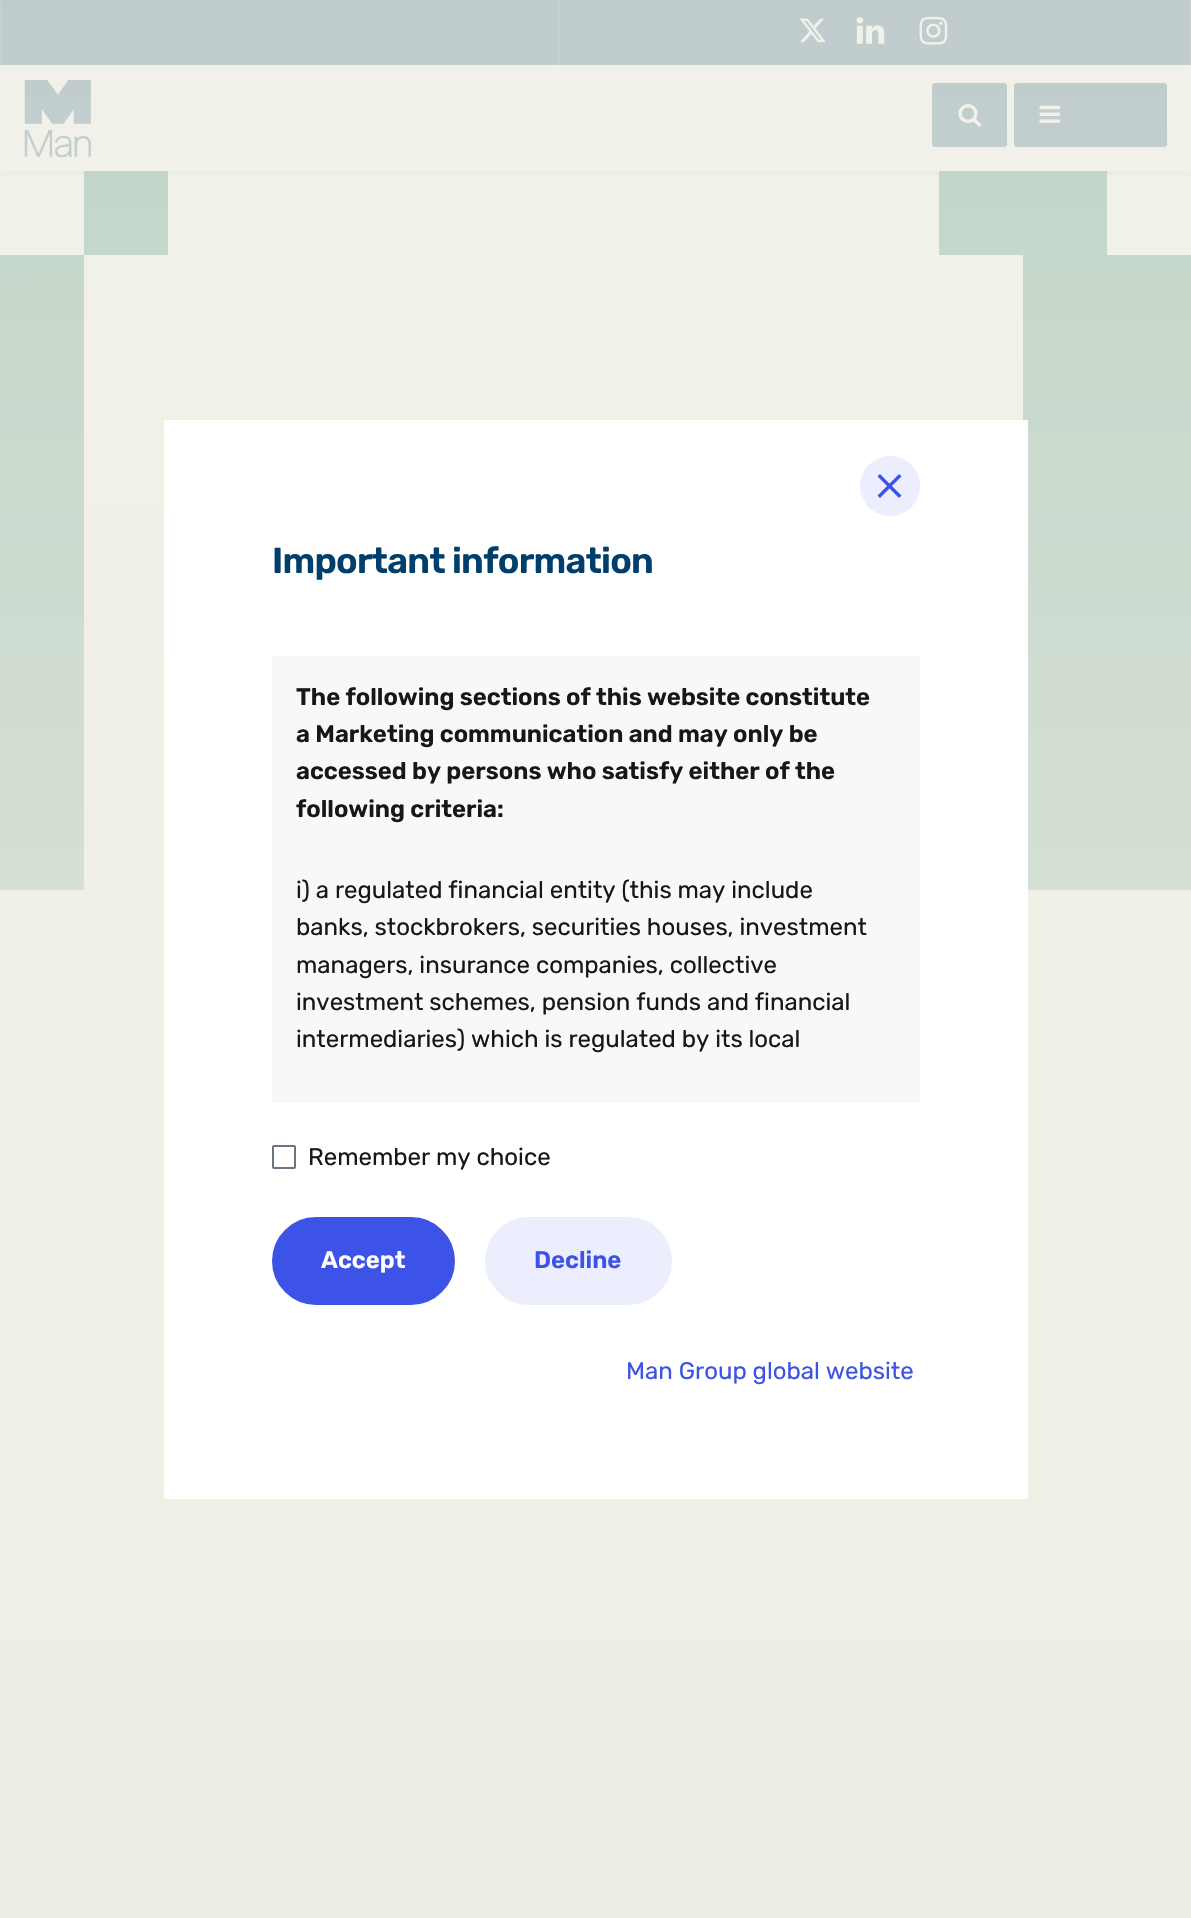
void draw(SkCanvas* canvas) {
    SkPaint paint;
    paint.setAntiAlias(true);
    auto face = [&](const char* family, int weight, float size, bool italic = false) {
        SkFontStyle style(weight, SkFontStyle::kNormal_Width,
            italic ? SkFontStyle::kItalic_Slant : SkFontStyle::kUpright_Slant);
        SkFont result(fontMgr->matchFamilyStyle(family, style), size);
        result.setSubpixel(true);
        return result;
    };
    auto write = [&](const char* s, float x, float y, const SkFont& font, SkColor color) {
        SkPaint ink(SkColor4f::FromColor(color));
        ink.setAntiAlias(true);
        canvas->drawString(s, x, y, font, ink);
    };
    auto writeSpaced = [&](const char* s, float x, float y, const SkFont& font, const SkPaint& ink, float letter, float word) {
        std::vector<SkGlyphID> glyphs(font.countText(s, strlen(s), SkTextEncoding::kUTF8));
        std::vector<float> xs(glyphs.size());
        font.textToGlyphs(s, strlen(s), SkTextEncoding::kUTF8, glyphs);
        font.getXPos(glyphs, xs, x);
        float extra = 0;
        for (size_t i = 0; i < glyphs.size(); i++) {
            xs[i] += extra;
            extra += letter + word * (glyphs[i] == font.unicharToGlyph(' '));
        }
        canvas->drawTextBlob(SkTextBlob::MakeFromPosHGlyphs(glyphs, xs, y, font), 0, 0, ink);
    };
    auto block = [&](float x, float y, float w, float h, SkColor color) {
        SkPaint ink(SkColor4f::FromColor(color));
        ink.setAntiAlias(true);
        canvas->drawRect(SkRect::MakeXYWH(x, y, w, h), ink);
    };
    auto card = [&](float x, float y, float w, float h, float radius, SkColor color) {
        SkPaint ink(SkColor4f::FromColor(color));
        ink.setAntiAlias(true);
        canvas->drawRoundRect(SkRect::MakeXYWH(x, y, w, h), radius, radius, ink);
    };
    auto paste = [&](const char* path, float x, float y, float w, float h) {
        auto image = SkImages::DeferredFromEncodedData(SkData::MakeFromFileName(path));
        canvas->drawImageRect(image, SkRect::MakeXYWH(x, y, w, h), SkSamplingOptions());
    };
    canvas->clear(SK_ColorWHITE);
    block(0, 0, 1190, 65, SkColorSetRGB(3, 64, 108));
    block(0, 2, 2, 61, SkColorSetRGB(40, 93, 130));
    block(1190, 0, 1, 65, SkColorSetRGB(40, 93, 130));
    block(558, 0, 2, 65, SkColorSetRGB(40, 93, 130));
    paste("pic1.png", 799, 18, 27, 25);
    paste("pic2.png", 856, 17, 29, 27);
    paste("pic3.png", 919, 16, 29, 29);
    block(0, 171, 1191, 719, SkColorSetRGB(3, 102, 77));
    block(0, 171, 84, 84, SK_ColorWHITE);
    block(168, 171, 771, 84, SK_ColorWHITE);
    block(1107, 171, 84, 84, SK_ColorWHITE);
    canvas->save();
    canvas->clipRect(SkRect::MakeXYWH(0, 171, 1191, 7));
    paint.setColor(SkColorSetARGB(26, 24, 24, 24));
    paint.setMaskFilter(SkMaskFilter::MakeBlur(kNormal_SkBlurStyle, 2));
    canvas->drawRect(SkRect::MakeXYWH(0, 69, 1191, 107), paint);
    paint.setMaskFilter(nullptr);
    canvas->restore();
    paste("pic4.png", 24, 80, 67, 78);
    card(932, 83, 75, 64, 3, SkColorSetRGB(3, 64, 108));
    paste("pic5.png", 958, 104, 23, 23);
    card(1014, 83, 153, 64, 3, SkColorSetRGB(3, 64, 108));
    paste("pic6.png", 1039, 105, 22, 18);
    block(84, 255, 939, 275, SK_ColorWHITE);
    block(84, 530, 80, 360, SK_ColorWHITE);
    {
        const SkColor colors[] = {SkColorSetARGB(204, 238, 238, 228), SkColorSetRGB(238, 238, 228)};
        const float stops[] = {0, 1};
        const SkPoint ends[] = {{595, 0}, {596, 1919}};
        paint.setShader(SkGradientShader::MakeLinear(ends, colors, stops, 2, SkTileMode::kClamp));
        paint.setAlpha(255);
    }
    canvas->drawRect(SkRect::MakeXYWH(0, 0, 1191, 1918), paint);
    block(164, 420, 864, 1079, SK_ColorWHITE);
    paint.setShader(nullptr);
    paint.setColor(SkColorSetRGB(236, 238, 253));
    canvas->drawCircle(890, 486, 30, paint);
    paste("pic7.png", 877, 474, 25, 24);
    auto kFont1 = face("Rubik", 600, 36);
    paint.setColor(SkColorSetRGB(0, 62, 107));
    writeSpaced("Important information", 272, 573, kFont1, paint, -0.75f, 0);
    block(272, 656, 648, 447, SkColorSetRGB(248, 248, 249));
    auto kFont2 = face("Rubik", 600, 24);
    write("The following sections of this website constitute", 296, 705, kFont2, SkColorSetRGB(21, 24, 26));
    write("a Marketing communication and may only be", 296, 742, kFont2, SkColorSetRGB(21, 24, 26));
    write("accessed by persons who satisfy either of the", 296, 779, kFont2, SkColorSetRGB(21, 24, 26));
    write("following criteria:", 296, 817, kFont2, SkColorSetRGB(21, 24, 26));
    auto kFont3 = face("Rubik", 400, 24);
    write("i) a regulated financial entity (this may include", 296, 898, kFont3, SkColorSetRGB(21, 24, 26));
    write("banks, stockbrokers, securities houses, investment", 296, 935, kFont3, SkColorSetRGB(21, 24, 26));
    write("managers, insurance companies, collective", 296, 973, kFont3, SkColorSetRGB(21, 24, 26));
    write("investment schemes, pension funds and financial", 296, 1010, kFont3, SkColorSetRGB(21, 24, 26));
    write("intermediaries) which is regulated by its local", 296, 1047, kFont3, SkColorSetRGB(21, 24, 26));
    paint.setStyle(SkPaint::kStroke_Style);
    paint.setStrokeWidth(2);
    paint.setColor(SkColorSetRGB(106, 118, 130));
    canvas->drawRoundRect(SkRect::MakeXYWH(273, 1146, 22, 22), 1, 1, paint);
    write("Remember my choice", 308, 1165, kFont3, SkColorSetRGB(21, 24, 26));
    paint.setStyle(SkPaint::kFill_Style);
    paint.setColor(SkColorSetRGB(61, 83, 231));
    canvas->drawRoundRect(SkRect::MakeXYWH(273, 1218, 181, 86), 43, 43, paint);
    paint.setStyle(SkPaint::kStroke_Style);
    canvas->drawRoundRect(SkRect::MakeXYWH(273, 1218, 181, 86), 43, 43, paint);
    write("Accept", 321, 1268, kFont2, SK_ColorWHITE);
    paint.setStyle(SkPaint::kFill_Style);
    paint.setColor(SkColorSetRGB(236, 238, 253));
    canvas->drawRoundRect(SkRect::MakeXYWH(486, 1218, 185, 86), 43, 43, paint);
    paint.setStyle(SkPaint::kStroke_Style);
    canvas->drawRoundRect(SkRect::MakeXYWH(486, 1218, 185, 86), 43, 43, paint);
    write("Decline", 534, 1268, kFont2, SkColorSetRGB(61, 83, 231));
    write("Man Group global website", 626, 1379, kFont3, SkColorSetRGB(61, 83, 231));
}
